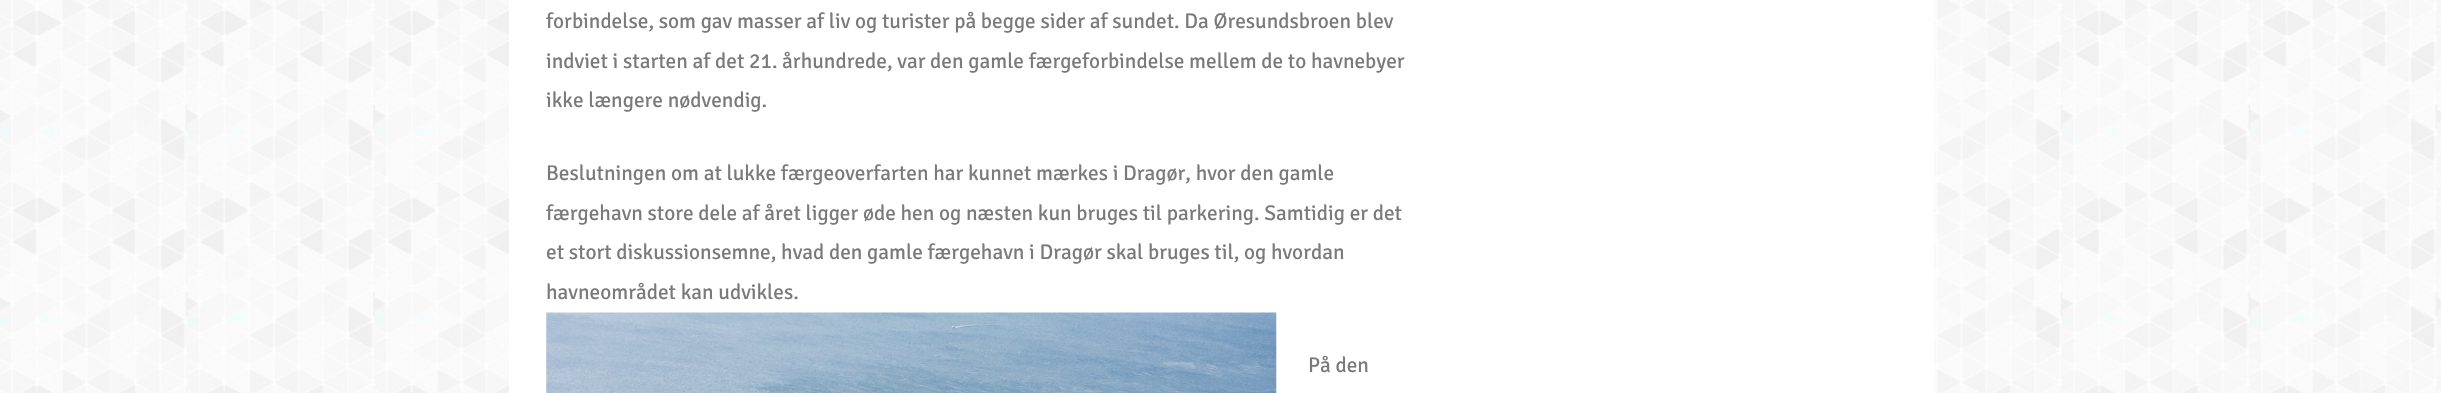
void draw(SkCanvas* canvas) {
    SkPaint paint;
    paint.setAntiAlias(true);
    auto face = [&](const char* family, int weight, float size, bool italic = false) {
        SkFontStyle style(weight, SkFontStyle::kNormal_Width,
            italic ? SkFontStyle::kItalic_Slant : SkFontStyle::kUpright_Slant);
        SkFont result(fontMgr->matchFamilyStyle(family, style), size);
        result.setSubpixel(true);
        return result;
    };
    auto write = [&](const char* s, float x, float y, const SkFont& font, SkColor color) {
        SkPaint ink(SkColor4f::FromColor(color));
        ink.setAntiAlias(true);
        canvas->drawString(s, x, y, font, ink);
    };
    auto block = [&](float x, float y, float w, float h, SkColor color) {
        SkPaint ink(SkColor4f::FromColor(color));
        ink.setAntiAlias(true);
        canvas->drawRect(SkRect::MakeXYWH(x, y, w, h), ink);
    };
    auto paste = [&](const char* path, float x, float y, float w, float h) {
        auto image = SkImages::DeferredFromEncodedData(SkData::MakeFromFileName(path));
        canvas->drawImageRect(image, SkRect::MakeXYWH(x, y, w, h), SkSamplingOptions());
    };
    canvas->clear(SK_ColorWHITE);
    paste("pic1.png", 0, 0, 2441, 393);
    block(509, 0, 1425, 393, SK_ColorWHITE);
    auto kFont1 = face("Signika Negative", 400, 21.25f);
    write("forbindelse, som gav masser af liv og turister på begge sider af sundet. Da Øresundsbroen blev", 546, 28, kFont1, SkColorSetRGB(122, 122, 122));
    write("indviet i starten af det 21. århundrede, var den gamle færgeforbindelse mellem de to havnebyer", 546, 68, kFont1, SkColorSetRGB(122, 122, 122));
    write("ikke længere nødvendig.", 546, 107, kFont1, SkColorSetRGB(122, 122, 122));
    write("Beslutningen om at lukke færgeoverfarten har kunnet mærkes i Dragør, hvor den gamle", 546, 180, kFont1, SkColorSetRGB(122, 122, 122));
    write("færgehavn store dele af året ligger øde hen og næsten kun bruges til parkering. Samtidig er det", 546, 220, kFont1, SkColorSetRGB(122, 122, 122));
    write("et stort diskussionsemne, hvad den gamle færgehavn i Dragør skal bruges til, og hvordan", 546, 259, kFont1, SkColorSetRGB(122, 122, 122));
    write("havneområdet kan udvikles.", 546, 299, kFont1, SkColorSetRGB(122, 122, 122));
    paste("pic2.png", 546, 312, 731, 81);
    write("På den", 1308, 372, kFont1, SkColorSetRGB(122, 122, 122));
}
